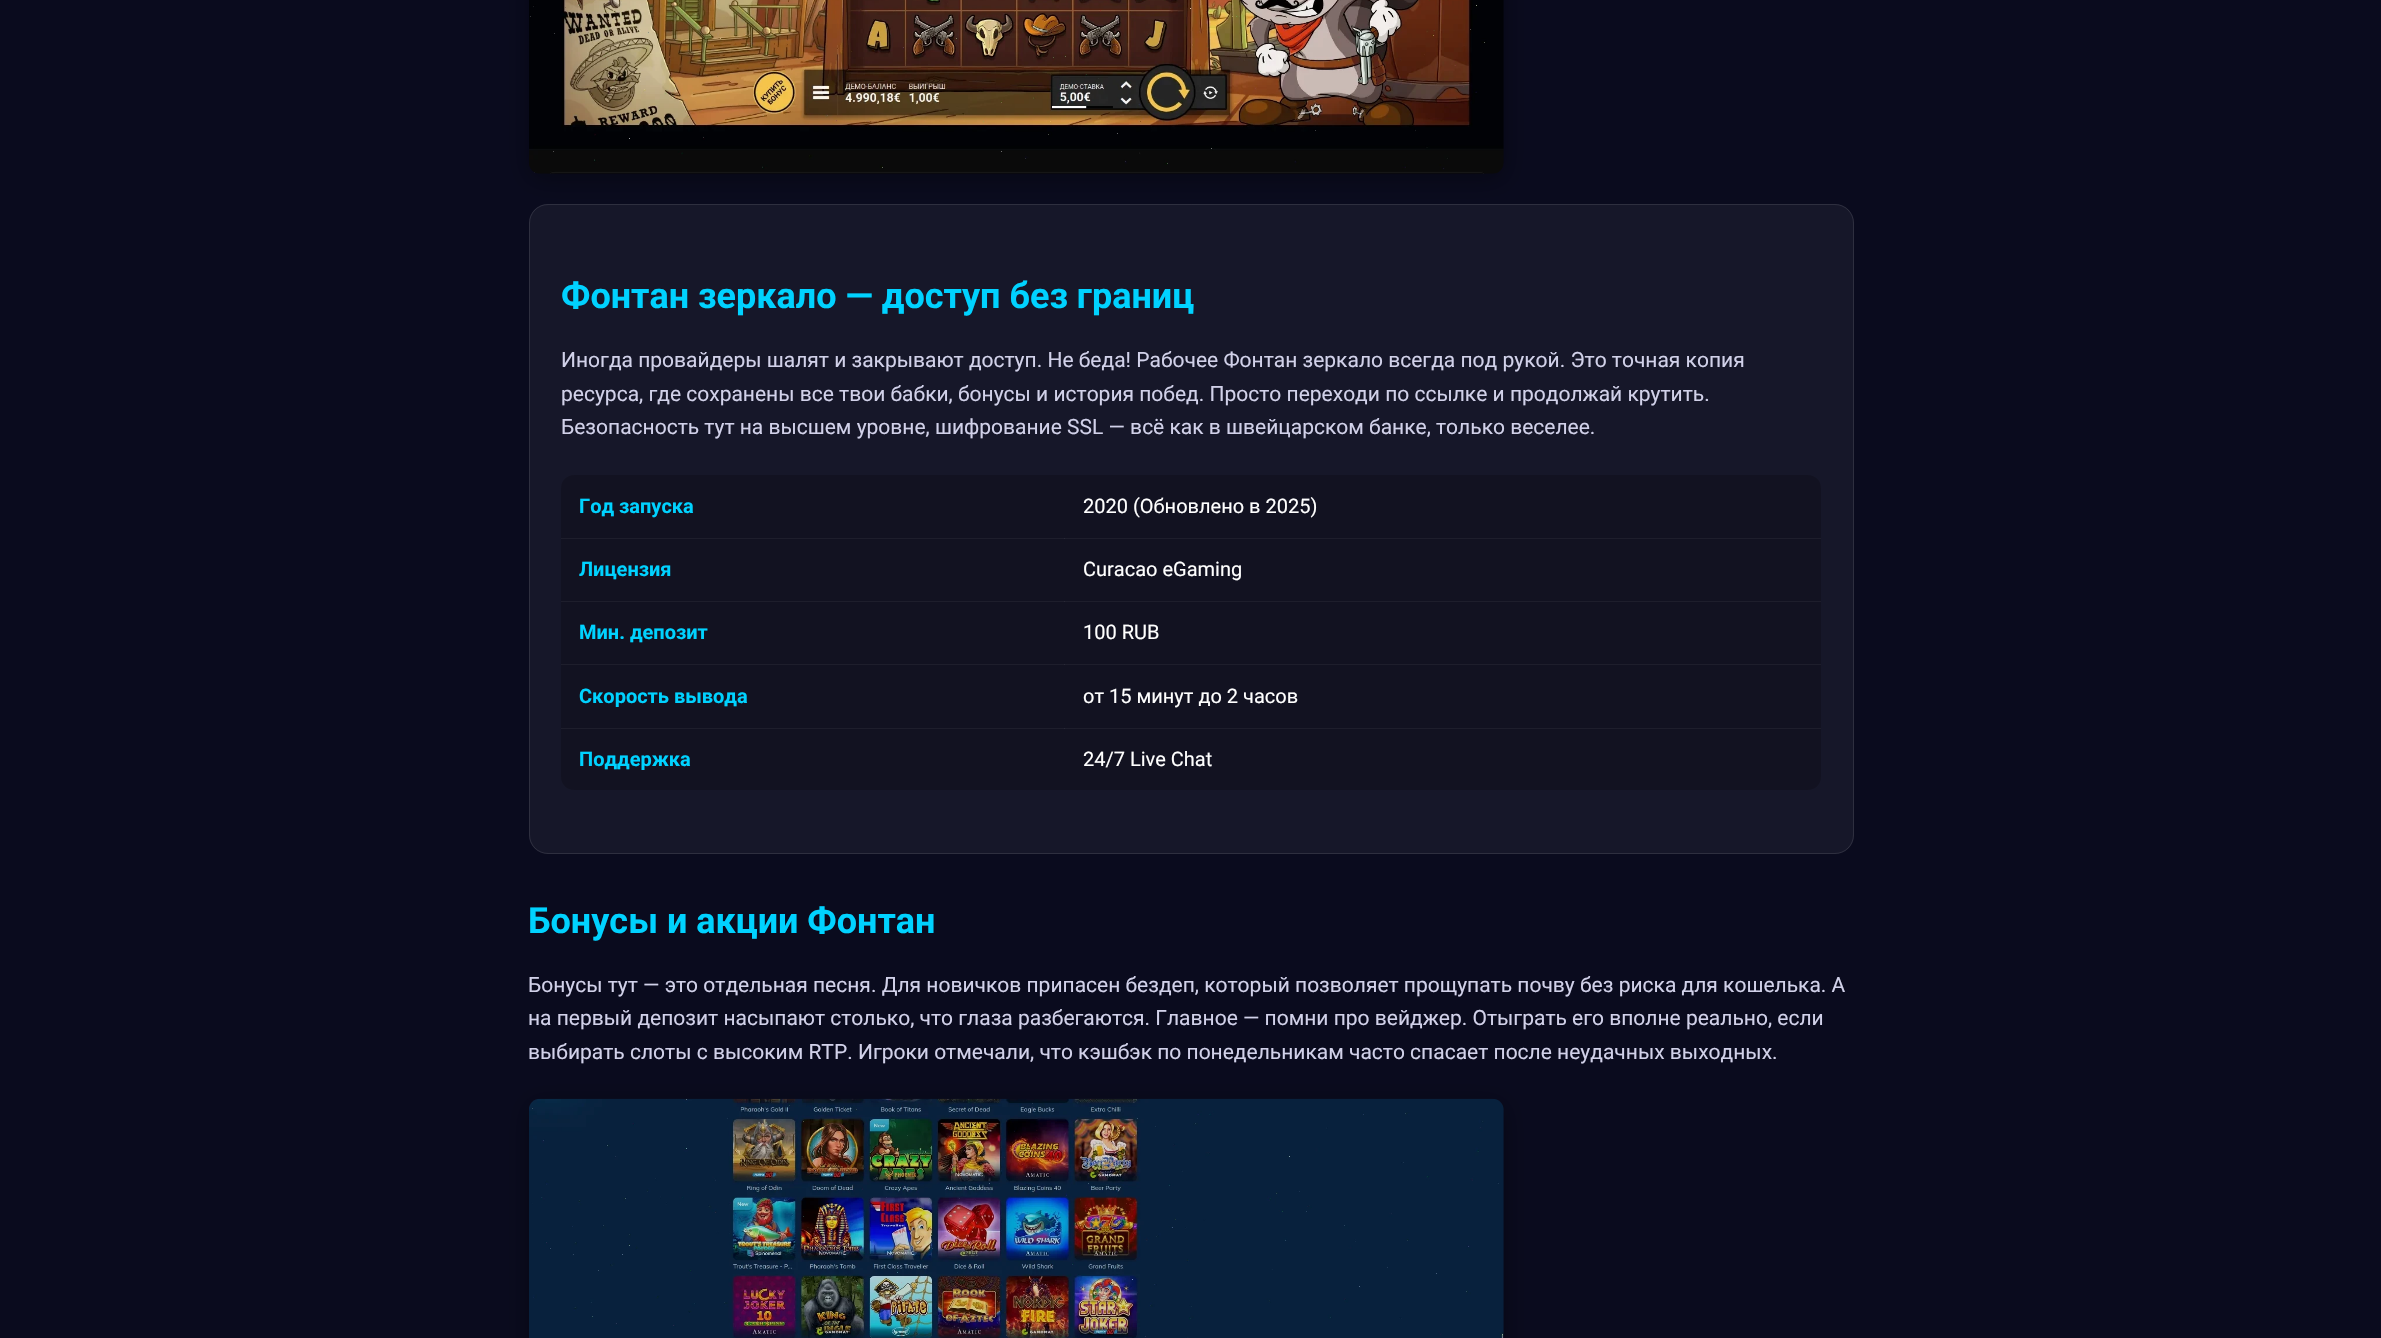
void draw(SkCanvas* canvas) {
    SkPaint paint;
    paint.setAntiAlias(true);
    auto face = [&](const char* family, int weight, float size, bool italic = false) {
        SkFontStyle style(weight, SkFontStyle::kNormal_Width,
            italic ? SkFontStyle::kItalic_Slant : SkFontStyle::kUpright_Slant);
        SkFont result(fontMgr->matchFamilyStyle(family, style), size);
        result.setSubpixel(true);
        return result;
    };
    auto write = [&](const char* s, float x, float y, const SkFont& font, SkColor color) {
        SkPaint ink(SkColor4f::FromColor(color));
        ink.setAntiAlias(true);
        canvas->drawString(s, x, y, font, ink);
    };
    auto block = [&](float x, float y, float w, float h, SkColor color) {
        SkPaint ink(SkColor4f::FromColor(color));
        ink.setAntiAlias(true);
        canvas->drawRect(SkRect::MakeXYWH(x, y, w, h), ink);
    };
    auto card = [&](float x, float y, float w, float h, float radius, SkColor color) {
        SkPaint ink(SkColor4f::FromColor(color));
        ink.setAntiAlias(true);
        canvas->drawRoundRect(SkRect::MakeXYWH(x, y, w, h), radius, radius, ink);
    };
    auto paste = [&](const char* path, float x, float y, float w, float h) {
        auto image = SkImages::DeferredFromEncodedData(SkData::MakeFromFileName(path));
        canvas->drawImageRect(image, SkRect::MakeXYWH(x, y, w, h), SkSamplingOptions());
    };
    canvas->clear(SkColorSetRGB(10, 11, 30));
    paint.setColor(SkColorSetARGB(89, 0, 0, 0));
    paint.setMaskFilter(SkMaskFilter::MakeBlur(kNormal_SkBlurStyle, 12.5f));
    canvas->drawRoundRect(SkRect::MakeXYWH(529, -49, 975, 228), 11, 11, paint);
    paint.setMaskFilter(nullptr);
    paste("pic1.png", 529, 0, 975, 174);
    card(529, 204, 1325, 650, 19, SkColorSetRGB(22, 23, 41));
    paint.setStyle(SkPaint::kStroke_Style);
    paint.setStrokeWidth(1);
    paint.setColor(SkColorSetARGB(26, 255, 255, 255));
    canvas->drawRoundRect(SkRect::MakeXYWH(529.5f, 204.5f, 1324, 649), 18.5f, 18.5f, paint);
    auto kFont1 = face("Roboto", 700, 36);
    write("Фонтан зеркало — доступ без границ", 561, 308, kFont1, SkColorSetRGB(0, 210, 255));
    auto kFont2 = face("Roboto", 400, 21);
    write("Иногда провайдеры шалят и закрывают доступ. Не беда! Рабочее Фонтан зеркало всегда под рукой. Это точная копия", 561, 367, kFont2, SkColorSetRGB(209, 209, 233));
    write("ресурса, где сохранены все твои бабки, бонусы и история побед. Просто переходи по ссылке и продолжай крутить.", 561, 401, kFont2, SkColorSetRGB(209, 209, 233));
    write("Безопасность тут на высшем уровне, шифрование SSL — всё как в швейцарском банке, только веселее.", 561, 434, kFont2, SkColorSetRGB(209, 209, 233));
    card(561, 475, 1260, 315, 13, SkColorSetRGB(18, 18, 33));
    block(561, 538, 1260, 1, SkColorSetRGB(30, 30, 44));
    block(561, 601, 1260, 1, SkColorSetRGB(30, 30, 44));
    block(561, 664, 1260, 1, SkColorSetRGB(30, 30, 44));
    block(561, 728, 1260, 1, SkColorSetRGB(30, 30, 44));
    auto kFont3 = face("Roboto", 700, 20);
    write("Год запуска", 579, 513, kFont3, SkColorSetRGB(0, 210, 255));
    block(1064, 538, 1, 1, SkColorSetRGB(41, 41, 55));
    auto kFont4 = face("Roboto", 400, 20);
    write("2020 (Обновлено в 2025)", 1083, 513, kFont4, SK_ColorWHITE);
    write("Лицензия", 579, 576, kFont3, SkColorSetRGB(0, 210, 255));
    block(1064, 601, 1, 1, SkColorSetRGB(41, 41, 55));
    write("Curacao eGaming", 1083, 576, kFont4, SK_ColorWHITE);
    write("Мин. депозит", 579, 639, kFont3, SkColorSetRGB(0, 210, 255));
    block(1064, 664, 1, 1, SkColorSetRGB(41, 41, 55));
    write("100 RUB", 1083, 639, kFont4, SK_ColorWHITE);
    write("Скорость вывода", 579, 703, kFont3, SkColorSetRGB(0, 210, 255));
    block(1064, 728, 1, 1, SkColorSetRGB(41, 41, 55));
    write("от 15 минут до 2 часов", 1083, 703, kFont4, SK_ColorWHITE);
    write("Поддержка", 579, 766, kFont3, SkColorSetRGB(0, 210, 255));
    write("24/7 Live Chat", 1083, 766, kFont4, SK_ColorWHITE);
    write("Бонусы и акции Фонтан", 528, 933, kFont1, SkColorSetRGB(0, 210, 255));
    write("Бонусы тут — это отдельная песня. Для новичков припасен бездеп, который позволяет прощупать почву без риска для кошелька. А", 528, 992, kFont2, SkColorSetRGB(209, 209, 233));
    write("на первый депозит насыпают столько, что глаза разбегаются. Главное — помни про вейджер. Отыграть его вполне реально, если", 528, 1025, kFont2, SkColorSetRGB(209, 209, 233));
    write("выбирать слоты с высоким RTP. Игроки отмечали, что кэшбэк по понедельникам часто спасает после неудачных выходных.", 528, 1059, kFont2, SkColorSetRGB(209, 209, 233));
    paint.setStyle(SkPaint::kFill_Style);
    paint.setColor(SkColorSetARGB(89, 0, 0, 0));
    paint.setMaskFilter(SkMaskFilter::MakeBlur(kNormal_SkBlurStyle, 12.5f));
    canvas->drawRoundRect(SkRect::MakeXYWH(529, 1104, 975, 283), 11, 11, paint);
    paint.setMaskFilter(nullptr);
    paste("pic2.png", 529, 1098, 975, 240);
}
